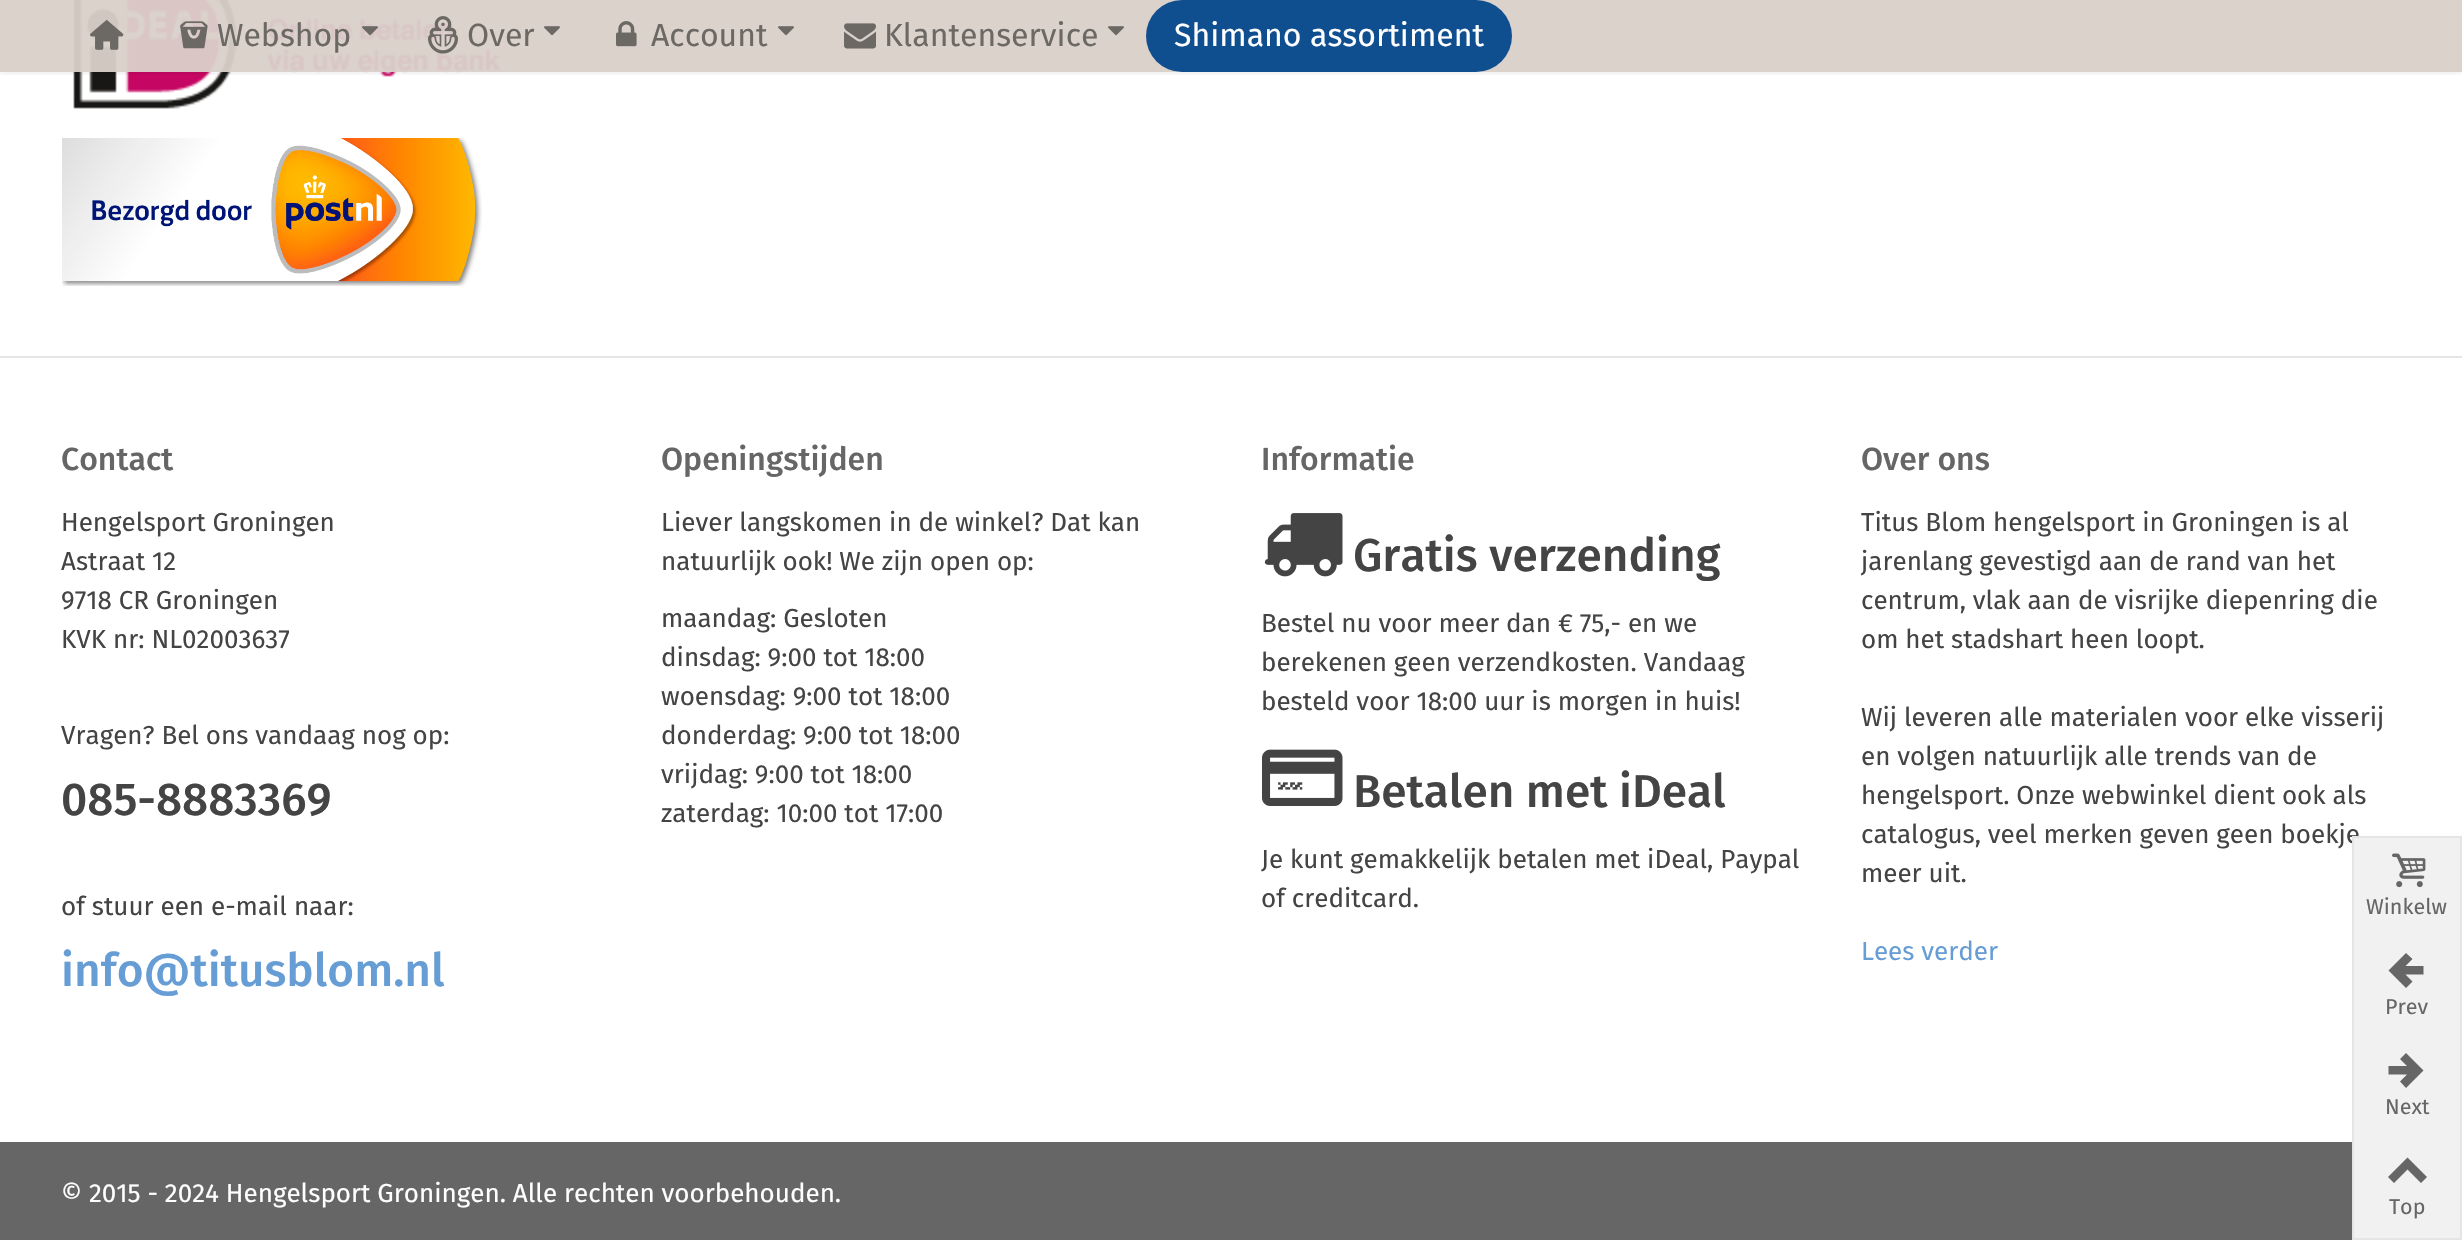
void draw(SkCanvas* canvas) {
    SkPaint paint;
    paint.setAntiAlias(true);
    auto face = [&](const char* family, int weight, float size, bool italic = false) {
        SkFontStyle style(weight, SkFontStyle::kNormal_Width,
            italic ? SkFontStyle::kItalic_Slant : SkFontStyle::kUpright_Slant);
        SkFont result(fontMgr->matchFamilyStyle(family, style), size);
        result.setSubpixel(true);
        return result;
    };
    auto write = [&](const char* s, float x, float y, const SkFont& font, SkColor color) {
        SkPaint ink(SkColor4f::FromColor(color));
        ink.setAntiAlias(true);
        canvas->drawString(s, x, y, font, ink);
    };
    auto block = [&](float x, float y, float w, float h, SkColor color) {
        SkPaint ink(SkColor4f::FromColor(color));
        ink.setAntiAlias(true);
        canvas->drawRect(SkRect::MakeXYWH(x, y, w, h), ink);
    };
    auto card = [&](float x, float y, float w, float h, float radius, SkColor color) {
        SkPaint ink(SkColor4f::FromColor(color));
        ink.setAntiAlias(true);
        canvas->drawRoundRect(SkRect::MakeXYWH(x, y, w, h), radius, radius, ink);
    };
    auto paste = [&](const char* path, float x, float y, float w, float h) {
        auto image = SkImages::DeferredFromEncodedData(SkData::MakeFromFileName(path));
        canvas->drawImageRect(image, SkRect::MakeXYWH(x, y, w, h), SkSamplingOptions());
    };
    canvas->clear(SK_ColorWHITE);
    paste("pic1.png", 73, 0, 427, 109);
    paste("pic2.png", 62, 138, 420, 148);
    canvas->save();
    canvas->clipRect(SkRect::MakeXYWH(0, 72, 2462, 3));
    paint.setColor(SkColorSetARGB(26, 0, 0, 0));
    paint.setMaskFilter(SkMaskFilter::MakeBlur(kNormal_SkBlurStyle, 4));
    canvas->drawRect(SkRect::MakeXYWH(0, 0, 2462, 72), paint);
    paint.setMaskFilter(nullptr);
    canvas->restore();
    block(0, 0, 2462, 72, SkColorSetARGB(242, 217, 208, 201));
    paste("pic3.png", 90, 19, 34, 31);
    paste("pic4.png", 180, 21, 28, 28);
    auto kFont1 = face("Fira Sans", 400, 32);
    write("Webshop", 217, 46, kFont1, SkColorSetRGB(108, 104, 100));
    paste("pic5.png", 362, 26, 16, 10);
    paste("pic6.png", 428, 16, 30, 38);
    write("Over", 467, 46, kFont1, SkColorSetRGB(108, 104, 100));
    paste("pic7.png", 544, 26, 16, 10);
    paste("pic8.png", 616, 21, 21, 26);
    write("Account", 651, 46, kFont1, SkColorSetRGB(108, 104, 100));
    paste("pic7.png", 778, 26, 16, 10);
    paste("pic9.png", 844, 23, 32, 26);
    write("Klantenservice", 884, 46, kFont1, SkColorSetRGB(108, 104, 100));
    paste("pic7.png", 1108, 26, 16, 10);
    card(1146, 0, 366, 72, 36, SkColorSetRGB(16, 79, 143));
    write("Shimano assortiment", 1174, 46, kFont1, SK_ColorWHITE);
    block(0, 356, 2462, 2, SkColorSetRGB(229, 229, 229));
    auto kFont2 = face("Fira Sans", 500, 32);
    write("Contact", 61, 470, kFont2, SkColorSetRGB(102, 102, 102));
    auto kFont3 = face("Fira Sans", 400, 26);
    write("Hengelsport Groningen", 61, 531, kFont3, SkColorSetRGB(68, 68, 68));
    write("Astraat 12", 61, 570, kFont3, SkColorSetRGB(68, 68, 68));
    write("9718 CR Groningen", 61, 609, kFont3, SkColorSetRGB(68, 68, 68));
    write("KVK nr: NL02003637", 61, 648, kFont3, SkColorSetRGB(68, 68, 68));
    write("Vragen? Bel ons vandaag nog op:", 61, 744, kFont3, SkColorSetRGB(68, 68, 68));
    auto kFont4 = face("Fira Sans", 500, 46);
    write("085-8883369", 61, 815, kFont4, SkColorSetRGB(68, 68, 68));
    write("of stuur een e-mail naar:", 61, 915, kFont3, SkColorSetRGB(68, 68, 68));
    write("info@titusblom.nl", 61, 986, kFont4, SkColorSetRGB(102, 157, 213));
    write("Openingstijden", 661, 470, kFont2, SkColorSetRGB(102, 102, 102));
    write("Liever langskomen in de winkel? Dat kan", 661, 531, kFont3, SkColorSetRGB(68, 68, 68));
    write("natuurlijk ook! We zijn open op:", 661, 570, kFont3, SkColorSetRGB(68, 68, 68));
    write("maandag: Gesloten", 661, 627, kFont3, SkColorSetRGB(68, 68, 68));
    write("dinsdag: 9:00 tot 18:00", 661, 666, kFont3, SkColorSetRGB(68, 68, 68));
    write("woensdag: 9:00 tot 18:00", 661, 705, kFont3, SkColorSetRGB(68, 68, 68));
    write("donderdag: 9:00 tot 18:00", 661, 744, kFont3, SkColorSetRGB(68, 68, 68));
    write("vrijdag: 9:00 tot 18:00", 661, 783, kFont3, SkColorSetRGB(68, 68, 68));
    write("zaterdag: 10:00 tot 17:00", 661, 822, kFont3, SkColorSetRGB(68, 68, 68));
    write("Informatie", 1261, 470, kFont2, SkColorSetRGB(102, 102, 102));
    paste("pic10.png", 1264, 513, 79, 64);
    write("Gratis verzending", 1353, 571, kFont4, SkColorSetRGB(68, 68, 68));
    write("Bestel nu voor meer dan € 75,- en we", 1261, 632, kFont3, SkColorSetRGB(68, 68, 68));
    write("berekenen geen verzendkosten. Vandaag", 1261, 671, kFont3, SkColorSetRGB(68, 68, 68));
    write("besteld voor 18:00 uur is morgen in huis!", 1261, 710, kFont3, SkColorSetRGB(68, 68, 68));
    paste("pic11.png", 1262, 749, 81, 57);
    write("Betalen met iDeal", 1353, 807, kFont4, SkColorSetRGB(68, 68, 68));
    write("Je kunt gemakkelijk betalen met iDeal, Paypal", 1261, 868, kFont3, SkColorSetRGB(68, 68, 68));
    write("of creditcard.", 1261, 907, kFont3, SkColorSetRGB(68, 68, 68));
    write("Over ons", 1861, 470, kFont2, SkColorSetRGB(102, 102, 102));
    write("Titus Blom hengelsport in Groningen is al", 1861, 531, kFont3, SkColorSetRGB(68, 68, 68));
    write("jarenlang gevestigd aan de rand van het", 1861, 570, kFont3, SkColorSetRGB(68, 68, 68));
    write("centrum, vlak aan de visrijke diepenring die", 1861, 609, kFont3, SkColorSetRGB(68, 68, 68));
    write("om het stadshart heen loopt.", 1861, 648, kFont3, SkColorSetRGB(68, 68, 68));
    write("Wij leveren alle materialen voor elke visserij", 1861, 726, kFont3, SkColorSetRGB(68, 68, 68));
    write("en volgen natuurlijk alle trends van de", 1861, 765, kFont3, SkColorSetRGB(68, 68, 68));
    write("hengelsport. Onze webwinkel dient ook als", 1861, 804, kFont3, SkColorSetRGB(68, 68, 68));
    write("catalogus, veel merken geven geen boekje", 1861, 843, kFont3, SkColorSetRGB(68, 68, 68));
    write("meer uit.", 1861, 882, kFont3, SkColorSetRGB(68, 68, 68));
    write("Lees verder", 1861, 960, kFont3, SkColorSetRGB(102, 157, 213));
    block(0, 1142, 2352, 98, SkColorSetRGB(102, 102, 102));
    write("© 2015 - 2024 Hengelsport Groningen. Alle rechten voorbehouden.", 61, 1202, kFont3, SK_ColorWHITE);
    block(2354, 838, 106, 400, SkColorSetRGB(241, 241, 241));
    block(2352, 836, 110, 2, SkColorSetRGB(229, 229, 229));
    block(2460, 836, 2, 404, SkColorSetRGB(229, 229, 229));
    block(2352, 1238, 110, 2, SkColorSetRGB(229, 229, 229));
    block(2352, 838, 2, 400, SkColorSetRGB(229, 229, 229));
    paste("pic12.png", 2392, 853, 34, 35);
    auto kFont5 = face("Fira Sans", 400, 21.5f);
    write("Winkelw", 2366, 914, kFont5, SkColorSetRGB(102, 102, 102));
    paint.setColor(SkColorSetRGB(102, 102, 102));
    canvas->drawPath(SkPathBuilder().moveTo(2406, 988).lineTo(2388.5f, 970.5f).lineTo(2406, 953).lineTo(2412.5f, 959).lineTo(2405.5f, 966).lineTo(2423.5f, 966).lineTo(2423.5f, 974.5f).lineTo(2405.5f, 974.5f).lineTo(2412.5f, 981.5f).close().detach(), paint);
    write("Prev", 2385, 1014, kFont5, SkColorSetRGB(102, 102, 102));
    canvas->drawPath(SkPathBuilder().moveTo(2406, 1053).lineTo(2423.5f, 1070.5f).lineTo(2406, 1088).lineTo(2400, 1081.5f).lineTo(2407, 1074.5f).lineTo(2388.5f, 1074.5f).lineTo(2388.5f, 1066).lineTo(2407, 1066).lineTo(2400, 1059).close().detach(), paint);
    write("Next", 2385, 1114, kFont5, SkColorSetRGB(102, 102, 102));
    canvas->drawPath(SkPathBuilder().moveTo(2388, 1177).lineTo(2407.5f, 1157.5f).lineTo(2427, 1177).lineTo(2421, 1183).lineTo(2407.5f, 1169.5f).lineTo(2394, 1183).close().detach(), paint);
    write("Top", 2389, 1214, kFont5, SkColorSetRGB(102, 102, 102));
}
